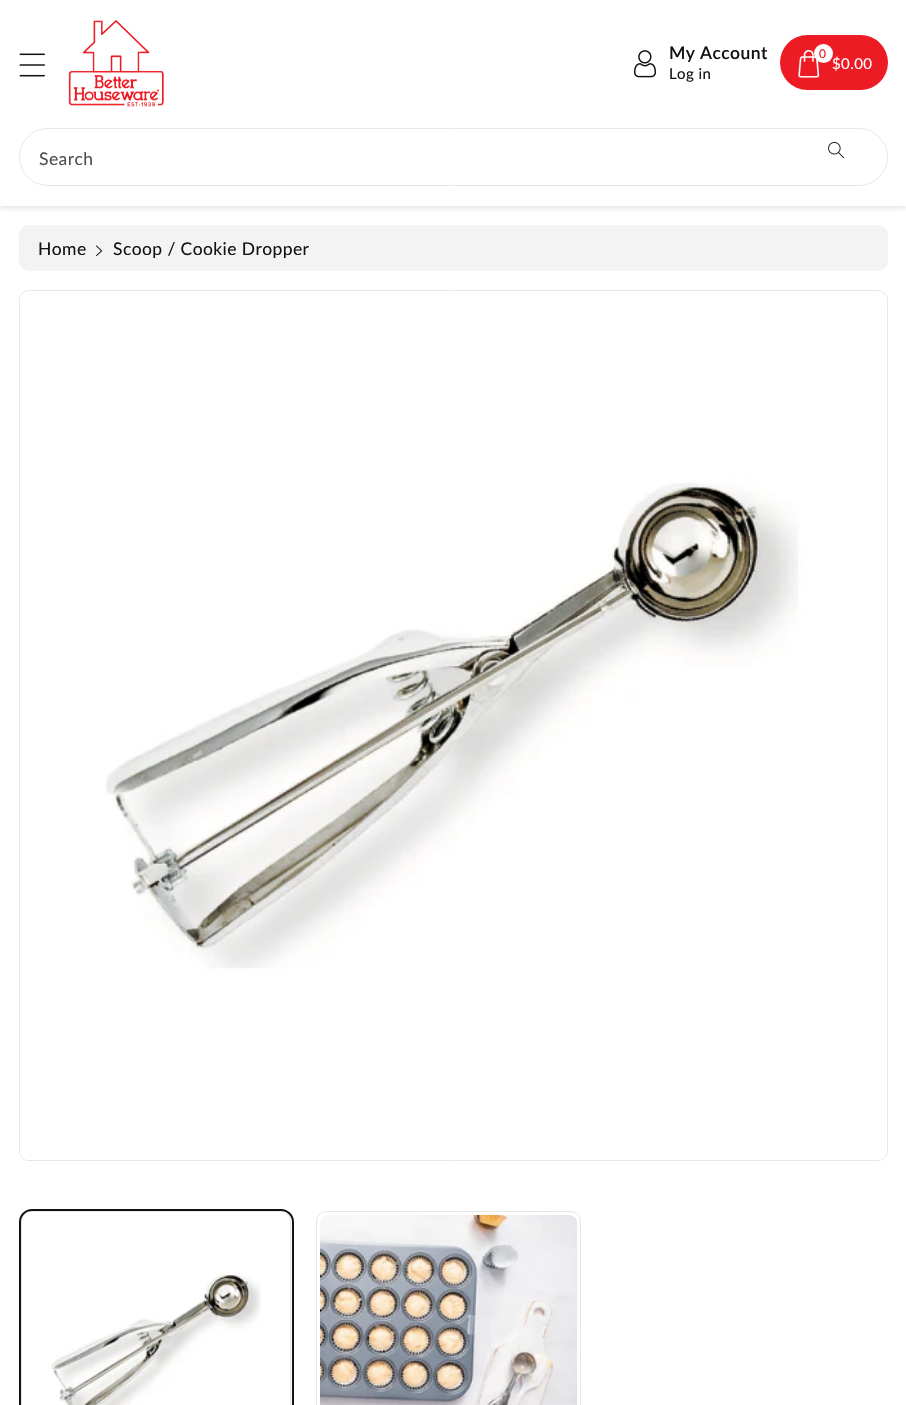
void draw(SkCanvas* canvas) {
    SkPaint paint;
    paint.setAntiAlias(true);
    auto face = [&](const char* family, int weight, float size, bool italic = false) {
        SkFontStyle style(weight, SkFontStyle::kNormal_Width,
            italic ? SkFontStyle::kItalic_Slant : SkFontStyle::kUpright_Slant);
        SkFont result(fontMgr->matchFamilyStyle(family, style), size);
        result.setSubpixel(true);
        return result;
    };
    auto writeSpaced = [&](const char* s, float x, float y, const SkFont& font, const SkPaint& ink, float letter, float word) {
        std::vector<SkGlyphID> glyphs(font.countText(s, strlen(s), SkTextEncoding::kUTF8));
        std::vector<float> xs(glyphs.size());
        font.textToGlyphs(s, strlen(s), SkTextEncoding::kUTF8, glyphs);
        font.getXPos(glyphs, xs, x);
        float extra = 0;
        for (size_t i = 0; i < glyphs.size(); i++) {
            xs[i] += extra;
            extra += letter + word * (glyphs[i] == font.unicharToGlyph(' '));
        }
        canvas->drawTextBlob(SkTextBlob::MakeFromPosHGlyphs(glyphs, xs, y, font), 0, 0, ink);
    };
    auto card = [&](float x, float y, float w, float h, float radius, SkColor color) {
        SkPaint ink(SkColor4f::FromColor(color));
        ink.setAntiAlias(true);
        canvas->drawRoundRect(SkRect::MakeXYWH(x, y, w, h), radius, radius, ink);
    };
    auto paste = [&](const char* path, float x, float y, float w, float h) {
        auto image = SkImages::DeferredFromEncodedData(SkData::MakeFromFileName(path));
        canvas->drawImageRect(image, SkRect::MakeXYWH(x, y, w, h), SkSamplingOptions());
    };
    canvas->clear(SK_ColorWHITE);
    canvas->save();
    canvas->clipRect(SkRect::MakeXYWH(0, 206, 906, 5));
    paint.setColor(SkColorSetARGB(26, 18, 18, 18));
    paint.setMaskFilter(SkMaskFilter::MakeBlur(kNormal_SkBlurStyle, 2.5f));
    canvas->drawRect(SkRect::MakeXYWH(0, 3, 906, 206), paint);
    paint.setMaskFilter(nullptr);
    canvas->restore();
    paste("pic1.png", 68, 20, 96, 87);
    paste("pic2.png", 19, 53, 26, 24);
    paste("pic3.png", 633, 50, 24, 28);
    auto kFont1 = face("Lato", 600, 17.5f);
    paint.setColor(SkColorSetRGB(18, 18, 18));
    writeSpaced("My Account", 669, 59, kFont1, paint, 0.4f, 0);
    auto kFont2 = face("Lato", 400, 15);
    writeSpaced("Log in", 669, 79, kFont2, paint, 0.4f, 0);
    card(780, 35, 108, 55, 27.5f, SkColorSetRGB(236, 27, 36));
    paste("pic4.png", 798, 50, 22, 28);
    paint.setColor(SK_ColorWHITE);
    canvas->drawCircle(823.5f, 53.5f, 9.5f, paint);
    auto kFont3 = face("Lato", 400, 12);
    paint.setColor(SkColorSetRGB(236, 27, 36));
    writeSpaced("0", 819, 58, kFont3, paint, 0.4f, 0);
    paint.setColor(SK_ColorWHITE);
    writeSpaced("$0.00", 832, 69, kFont2, paint, 0.4f, 0);
    paste("pic5.png", 828, 142, 17, 17);
    paint.setStyle(SkPaint::kStroke_Style);
    paint.setStrokeWidth(1);
    paint.setColor(SkColorSetRGB(231, 231, 231));
    canvas->drawRoundRect(SkRect::MakeXYWH(19.5f, 128.5f, 868, 57), 28.5f, 28.5f, paint);
    auto kFont4 = face("Lato", 400, 17.5f);
    paint.setStyle(SkPaint::kFill_Style);
    paint.setColor(SkColorSetRGB(77, 77, 77));
    writeSpaced("Search", 39, 165, kFont4, paint, 0.4f, 0);
    card(19, 225, 869, 46, 10, SkColorSetRGB(243, 243, 243));
    paint.setColor(SkColorSetRGB(18, 18, 18));
    writeSpaced("Home", 38, 255, kFont4, paint, 0.4f, 0);
    paste("pic6.png", 95, 245, 8, 12);
    writeSpaced("Scoop / Cookie Dropper", 113, 255, kFont4, paint, 0.4f, 0);
    paint.setStyle(SkPaint::kStroke_Style);
    paint.setColor(SkColorSetRGB(231, 231, 231));
    canvas->drawRoundRect(SkRect::MakeXYWH(19.5f, 290.5f, 868, 870), 9.5f, 9.5f, paint);
    paste("pic7.png", 20, 295, 861, 865);
    paint.setStrokeWidth(2);
    paint.setColor(SkColorSetRGB(18, 18, 18));
    canvas->drawRoundRect(SkRect::MakeXYWH(20, 1210, 273, 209), 12, 12, paint);
    paint.setStrokeWidth(1);
    paint.setColor(SkColorSetARGB(26, 18, 18, 18));
    canvas->drawRoundRect(SkRect::MakeXYWH(21.5f, 1211.5f, 269, 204), 9.5f, 9.5f, paint);
    paste("pic8.png", 51, 1274, 210, 131);
    paint.setColor(SkColorSetRGB(231, 231, 231));
    canvas->drawRoundRect(SkRect::MakeXYWH(316.5f, 1211.5f, 264, 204), 9.5f, 9.5f, paint);
    paste("pic9.png", 320, 1215, 258, 190);
}
